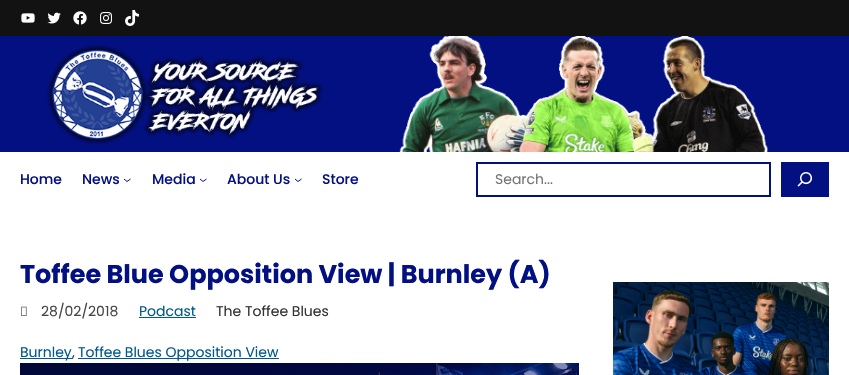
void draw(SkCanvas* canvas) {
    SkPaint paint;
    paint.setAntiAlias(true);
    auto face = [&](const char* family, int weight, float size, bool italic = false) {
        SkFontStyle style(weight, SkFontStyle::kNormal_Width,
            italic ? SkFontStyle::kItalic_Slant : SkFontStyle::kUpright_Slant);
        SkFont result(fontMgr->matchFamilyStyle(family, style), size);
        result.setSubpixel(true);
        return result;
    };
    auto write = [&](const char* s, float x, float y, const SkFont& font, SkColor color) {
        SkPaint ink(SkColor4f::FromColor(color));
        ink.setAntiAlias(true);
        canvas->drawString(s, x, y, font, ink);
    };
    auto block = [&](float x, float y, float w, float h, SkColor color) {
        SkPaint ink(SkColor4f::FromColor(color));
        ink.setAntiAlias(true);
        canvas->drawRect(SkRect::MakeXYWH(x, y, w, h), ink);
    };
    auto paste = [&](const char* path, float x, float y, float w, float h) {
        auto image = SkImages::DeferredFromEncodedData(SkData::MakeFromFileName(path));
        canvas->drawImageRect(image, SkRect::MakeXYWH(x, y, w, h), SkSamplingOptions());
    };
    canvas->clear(SkColorSetRGB(3, 16, 129));
    block(0, 0, 849, 36, SkColorSetRGB(18, 18, 18));
    paste("pic1.png", 21, 13, 14, 10);
    paste("pic2.png", 47, 12, 14, 12);
    paste("pic3.png", 73, 11, 14, 14);
    paste("pic4.png", 100, 12, 12, 12);
    paste("pic5.png", 125, 10, 14, 16);
    paste("pic6.png", 47, 44, 277, 101);
    paste("pic7.png", 399, 36, 369, 116);
    block(0, 152, 849, 223, SK_ColorWHITE);
    auto kFont1 = face("Poppins", 500, 14);
    write("Home", 20, 184, kFont1, SkColorSetRGB(3, 16, 129));
    write("News", 82, 184, kFont1, SkColorSetRGB(3, 16, 129));
    paint.setStyle(SkPaint::kStroke_Style);
    paint.setStrokeWidth(1);
    paint.setColor(SkColorSetRGB(3, 16, 129));
    canvas->drawPath(SkPathBuilder().moveTo(124, 179).lineTo(127, 181.5f).lineTo(130.5f, 179).detach(), paint);
    write("Media", 152, 184, kFont1, SkColorSetRGB(3, 16, 129));
    canvas->drawPath(SkPathBuilder().moveTo(200, 179).lineTo(203, 181.5f).lineTo(206.5f, 179).detach(), paint);
    write("About Us", 227, 184, kFont1, SkColorSetRGB(3, 16, 129));
    canvas->drawPath(SkPathBuilder().moveTo(295, 179).lineTo(298, 181.5f).lineTo(301.5f, 179).detach(), paint);
    write("Store", 322, 184, kFont1, SkColorSetRGB(3, 16, 129));
    paint.setStrokeWidth(2);
    canvas->drawRect(SkRect::MakeXYWH(477, 163, 293, 33), paint);
    auto kFont2 = face("Poppins", 400, 14);
    write("Search...", 495, 184, kFont2, SkColorSetRGB(117, 117, 117));
    block(781, 162, 48, 35, SkColorSetRGB(3, 16, 129));
    paste("pic8.png", 797, 172, 16, 15);
    auto kFont3 = face("Poppins", 700, 25.5f);
    write("Toffee Blue Opposition View | Burnley (A)", 20, 283, kFont3, SkColorSetRGB(3, 16, 129));
    paste("pic9.png", 21, 306, 6, 10);
    write("28/02/2018", 41, 316, kFont2, SkColorSetRGB(71, 71, 71));
    write("Podcast", 139, 316, kFont2, SkColorSetRGB(0, 90, 142));
    block(139, 317, 57, 1, SkColorSetRGB(0, 90, 142));
    write("The Toffee Blues", 216, 316, kFont2, SkColorSetRGB(51, 51, 51));
    block(20, 358, 52, 1, SkColorSetRGB(0, 90, 142));
    write("Burnley", 20, 357, kFont2, SkColorSetRGB(0, 90, 142));
    write(",", 72, 357, kFont2, SkColorSetRGB(51, 51, 51));
    block(78, 358, 201, 1, SkColorSetRGB(0, 90, 142));
    write("Toffee Blues Opposition View", 78, 357, kFont2, SkColorSetRGB(0, 90, 142));
    paste("pic10.png", 20, 363, 559, 12);
    paste("pic11.png", 613, 282, 216, 93);
}
